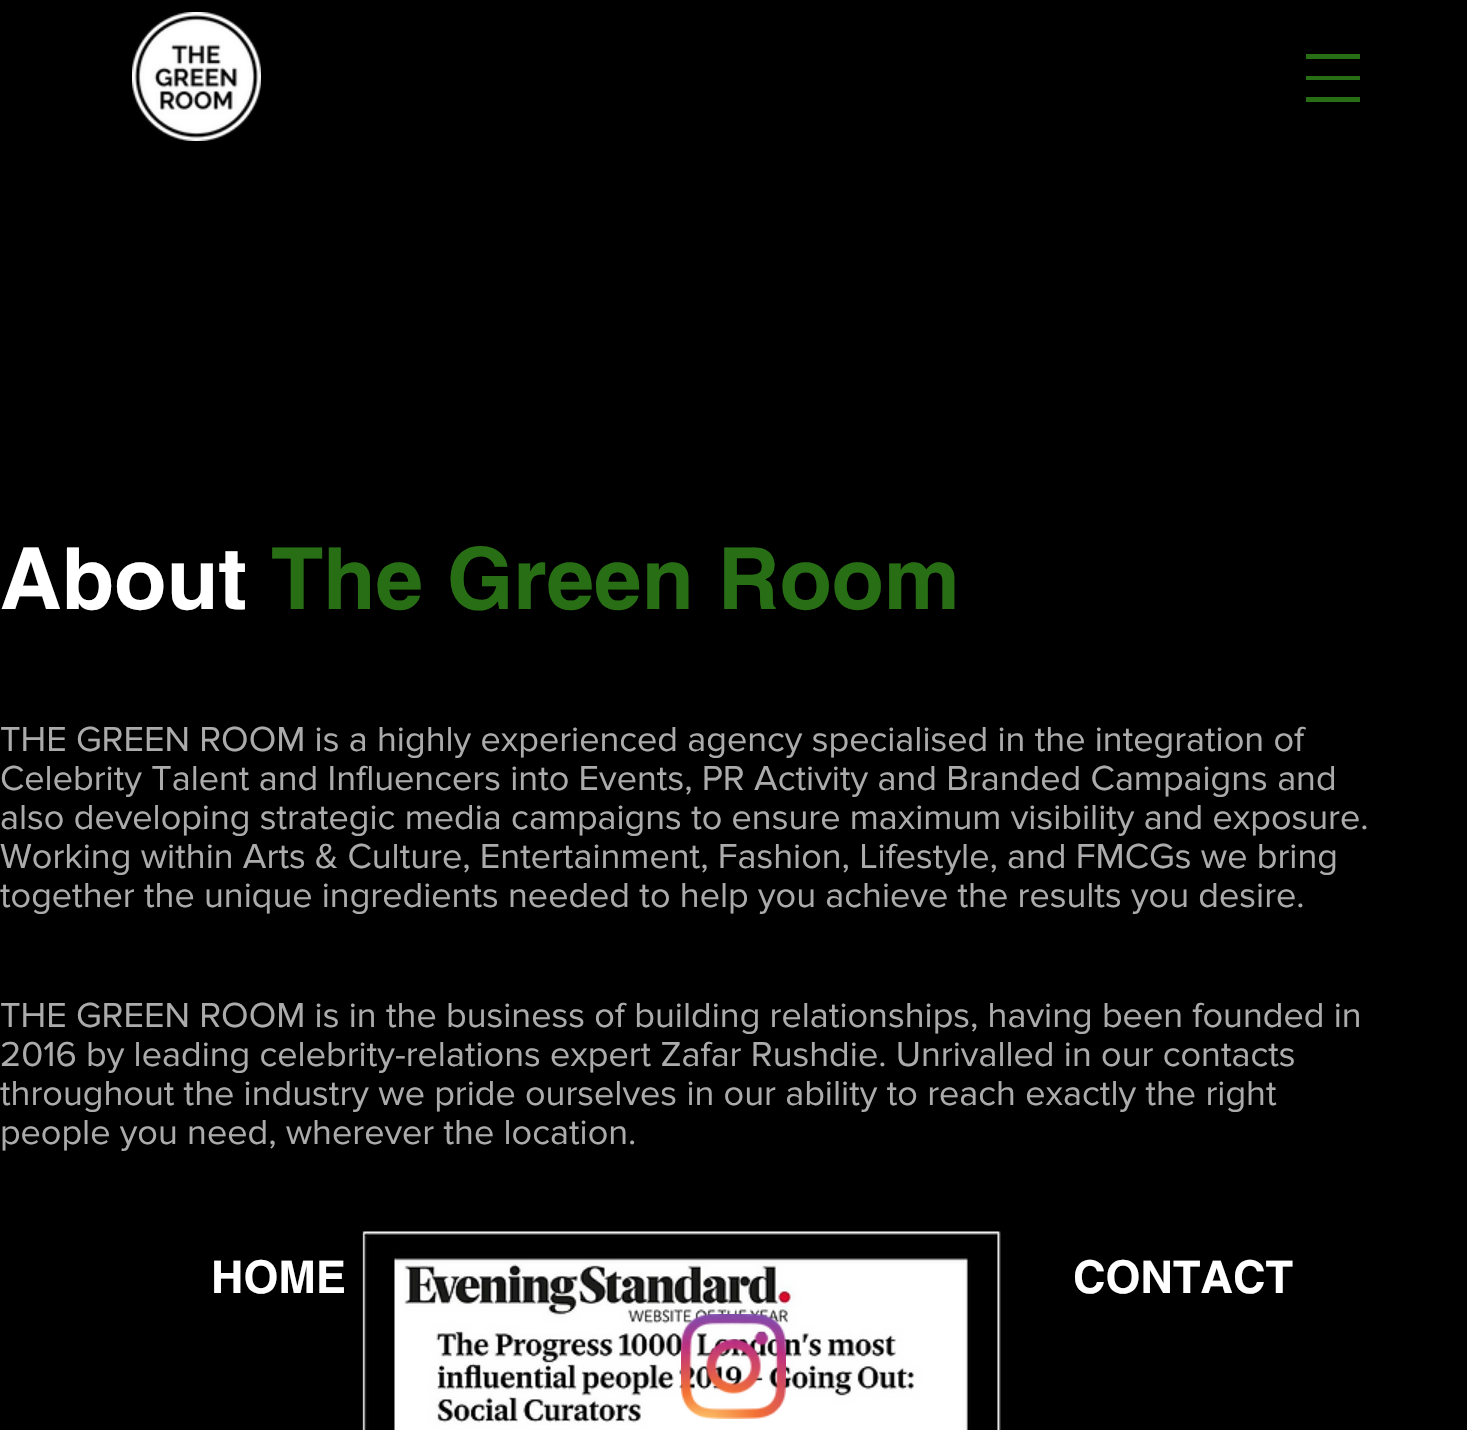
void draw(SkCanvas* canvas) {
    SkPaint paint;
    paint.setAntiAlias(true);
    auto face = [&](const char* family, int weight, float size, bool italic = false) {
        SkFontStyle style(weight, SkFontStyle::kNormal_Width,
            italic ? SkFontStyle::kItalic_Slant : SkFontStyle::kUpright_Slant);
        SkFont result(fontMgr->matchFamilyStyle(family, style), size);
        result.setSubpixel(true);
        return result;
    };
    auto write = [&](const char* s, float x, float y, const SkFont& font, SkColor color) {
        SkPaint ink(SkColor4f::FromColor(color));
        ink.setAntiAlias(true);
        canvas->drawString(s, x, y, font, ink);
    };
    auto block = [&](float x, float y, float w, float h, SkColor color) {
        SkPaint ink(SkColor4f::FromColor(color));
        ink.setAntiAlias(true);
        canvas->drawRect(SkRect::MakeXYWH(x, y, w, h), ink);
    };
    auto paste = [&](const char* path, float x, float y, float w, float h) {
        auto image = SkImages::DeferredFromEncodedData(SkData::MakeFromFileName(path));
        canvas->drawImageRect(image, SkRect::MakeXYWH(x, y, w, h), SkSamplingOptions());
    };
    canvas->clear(SK_ColorBLACK);
    paste("pic1.png", 132, 12, 129, 129);
    block(1306, 54, 54, 5, SkColorSetRGB(39, 110, 21));
    block(1306, 76, 54, 4, SkColorSetRGB(39, 110, 21));
    block(1306, 97, 54, 5, SkColorSetRGB(39, 110, 21));
    auto kFont1 = face("helvetica", 700, 85.5f);
    write("About", 0, 609, kFont1, SK_ColorWHITE);
    write("The Green Room", 271, 609, kFont1, SkColorSetRGB(39, 110, 21));
    auto kFont2 = face("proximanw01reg", 400, 36);
    write("THE GREEN ROOM is a highly experienced agency specialised in the integration of", 0, 751, kFont2, SkColorSetRGB(171, 171, 171));
    write("Celebrity Talent and Influencers into Events, PR Activity and Branded Campaigns and", 0, 790, kFont2, SkColorSetRGB(171, 171, 171));
    write("also developing strategic media campaigns to ensure maximum visibility and exposure.", 0, 829, kFont2, SkColorSetRGB(171, 171, 171));
    write("Working within Arts & Culture, Entertainment, Fashion, Lifestyle, and FMCGs we bring", 0, 868, kFont2, SkColorSetRGB(171, 171, 171));
    write("together the unique ingredients needed to help you achieve the results you desire.", 0, 907, kFont2, SkColorSetRGB(171, 171, 171));
    write("THE GREEN ROOM is in the business of building relationships, having been founded in", 0, 1027, kFont2, SkColorSetRGB(171, 171, 171));
    write("2016 by leading celebrity-relations expert Zafar Rushdie. Unrivalled in our contacts", 0, 1066, kFont2, SkColorSetRGB(171, 171, 171));
    write("throughout the industry we pride ourselves in our ability to reach exactly the right", 0, 1105, kFont2, SkColorSetRGB(171, 171, 171));
    write("people you need, wherever the location.", 0, 1144, kFont2, SkColorSetRGB(171, 171, 171));
    paste("pic2.png", 362, 1231, 639, 199);
    auto kFont3 = face("helvetica", 700, 45);
    write("HOME", 211, 1293, kFont3, SK_ColorWHITE);
    write("CONTACT", 1073, 1293, kFont3, SK_ColorWHITE);
    paste("pic3.png", 681, 1314, 105, 105);
}
